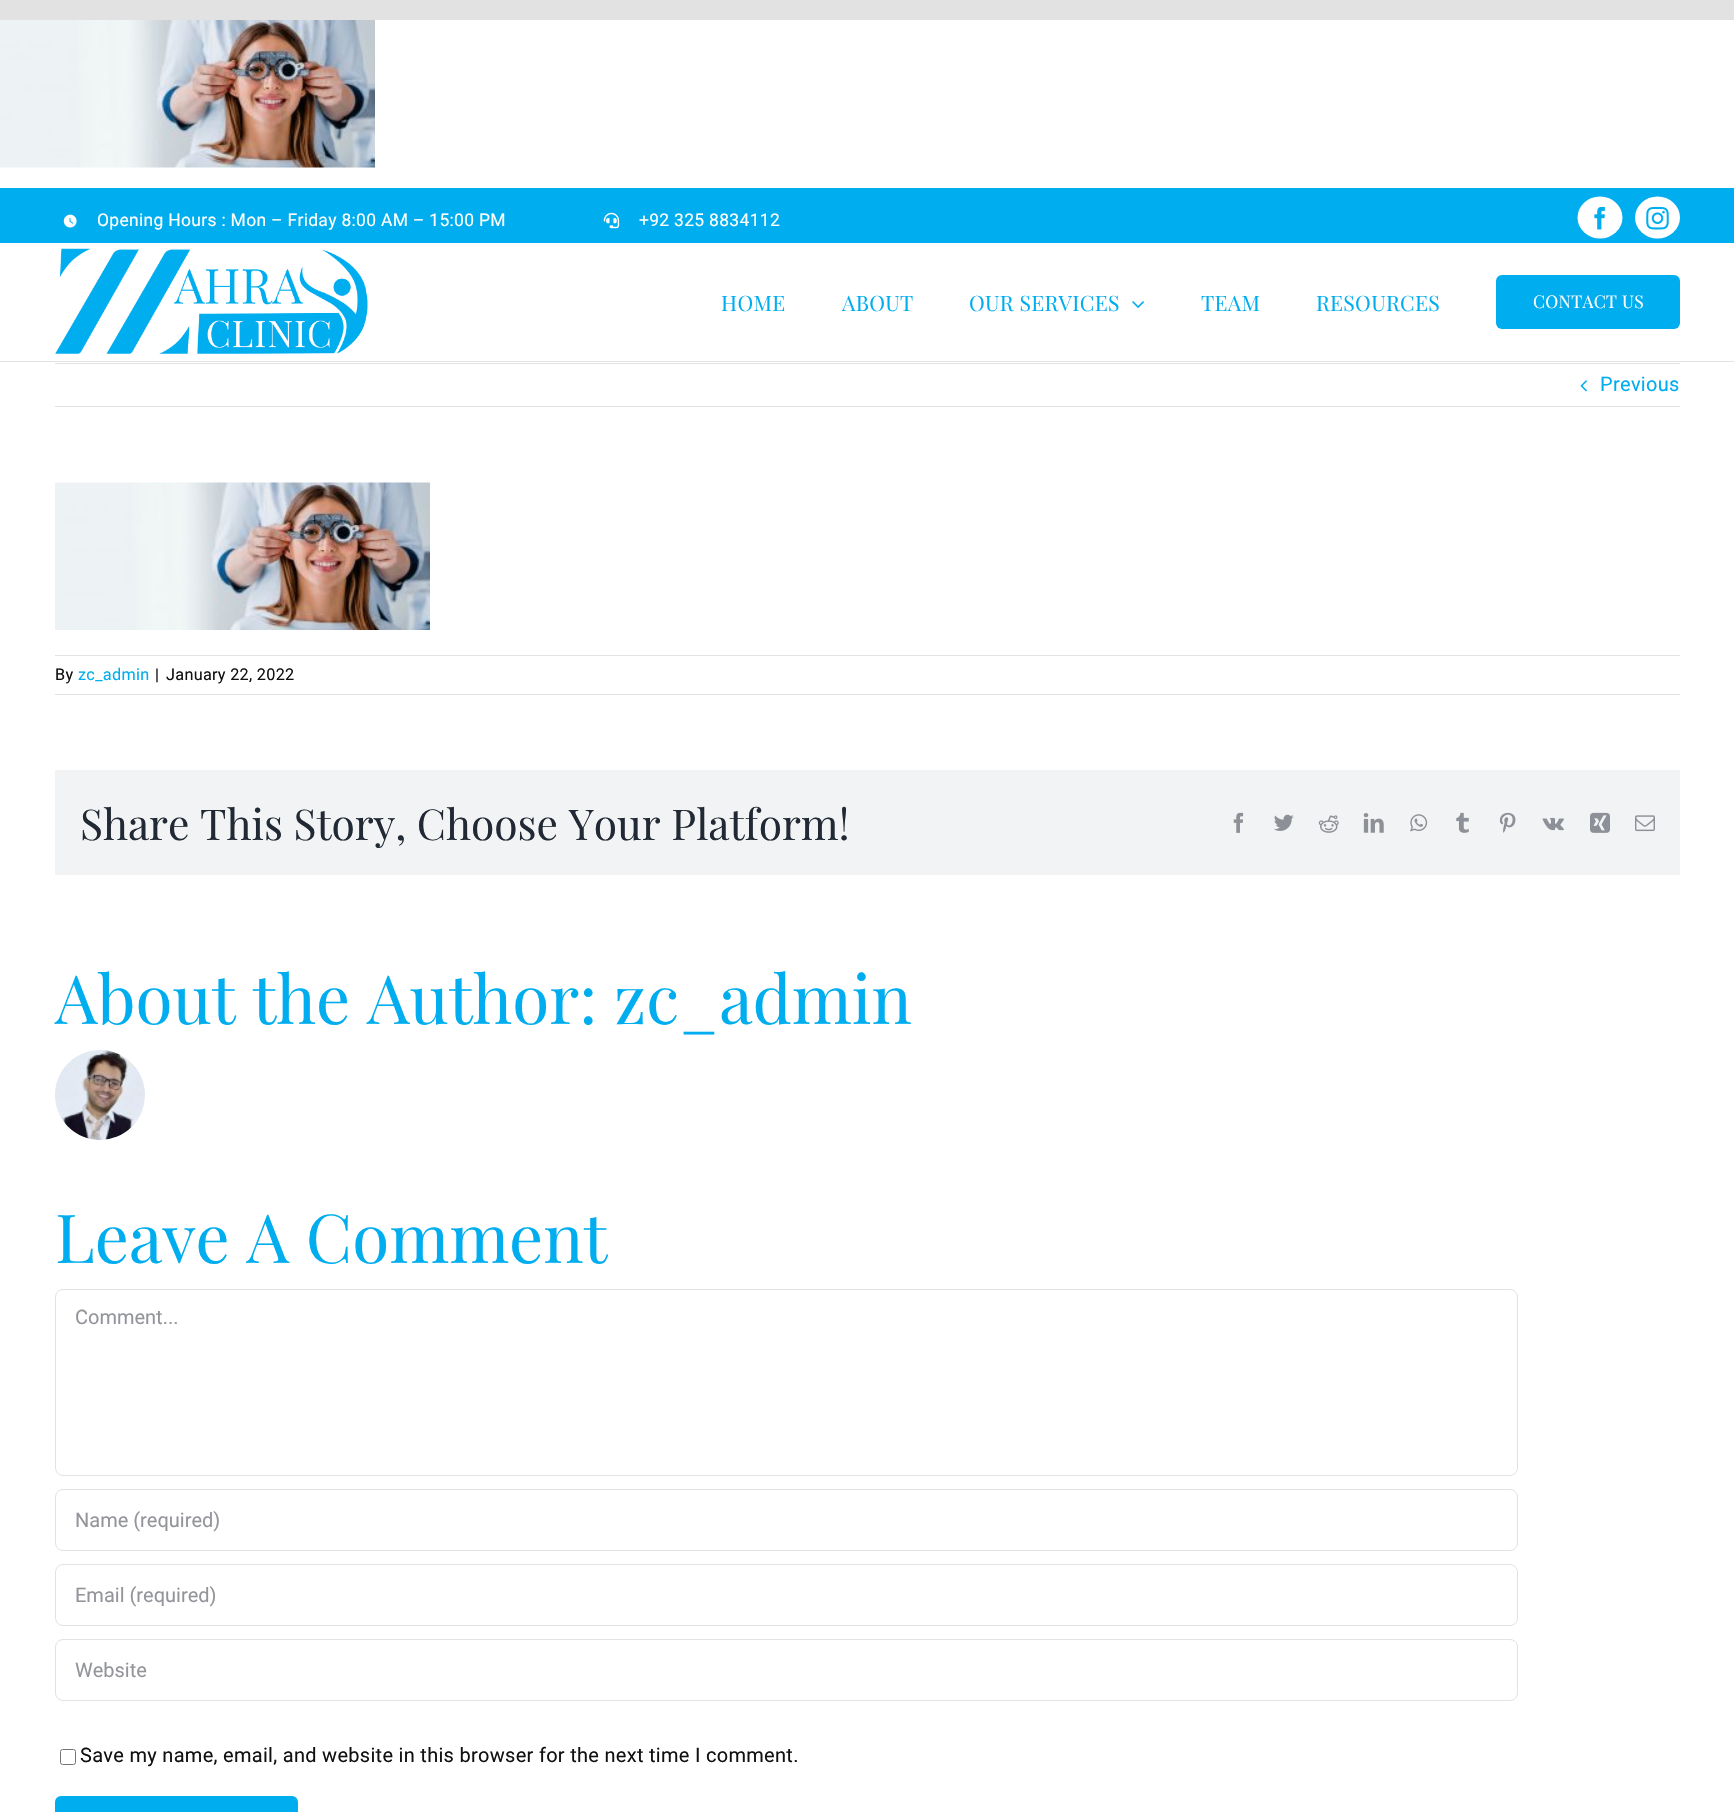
void draw(SkCanvas* canvas) {
    SkPaint paint;
    paint.setAntiAlias(true);
    auto face = [&](const char* family, int weight, float size, bool italic = false) {
        SkFontStyle style(weight, SkFontStyle::kNormal_Width,
            italic ? SkFontStyle::kItalic_Slant : SkFontStyle::kUpright_Slant);
        SkFont result(fontMgr->matchFamilyStyle(family, style), size);
        result.setSubpixel(true);
        return result;
    };
    auto write = [&](const char* s, float x, float y, const SkFont& font, SkColor color) {
        SkPaint ink(SkColor4f::FromColor(color));
        ink.setAntiAlias(true);
        canvas->drawString(s, x, y, font, ink);
    };
    auto writeSpaced = [&](const char* s, float x, float y, const SkFont& font, const SkPaint& ink, float letter, float word) {
        std::vector<SkGlyphID> glyphs(font.countText(s, strlen(s), SkTextEncoding::kUTF8));
        std::vector<float> xs(glyphs.size());
        font.textToGlyphs(s, strlen(s), SkTextEncoding::kUTF8, glyphs);
        font.getXPos(glyphs, xs, x);
        float extra = 0;
        for (size_t i = 0; i < glyphs.size(); i++) {
            xs[i] += extra;
            extra += letter + word * (glyphs[i] == font.unicharToGlyph(' '));
        }
        canvas->drawTextBlob(SkTextBlob::MakeFromPosHGlyphs(glyphs, xs, y, font), 0, 0, ink);
    };
    auto block = [&](float x, float y, float w, float h, SkColor color) {
        SkPaint ink(SkColor4f::FromColor(color));
        ink.setAntiAlias(true);
        canvas->drawRect(SkRect::MakeXYWH(x, y, w, h), ink);
    };
    auto card = [&](float x, float y, float w, float h, float radius, SkColor color) {
        SkPaint ink(SkColor4f::FromColor(color));
        ink.setAntiAlias(true);
        canvas->drawRoundRect(SkRect::MakeXYWH(x, y, w, h), radius, radius, ink);
    };
    auto paste = [&](const char* path, float x, float y, float w, float h) {
        auto image = SkImages::DeferredFromEncodedData(SkData::MakeFromFileName(path));
        canvas->drawImageRect(image, SkRect::MakeXYWH(x, y, w, h), SkSamplingOptions());
    };
    canvas->clear(SkColorSetRGB(226, 226, 226));
    block(0, 20, 1734, 1792, SK_ColorWHITE);
    paste("pic1.png", 0, 20, 375, 148);
    block(0, 188, 1734, 55, SkColorSetRGB(0, 173, 239));
    paste("pic2.png", 63, 214, 14, 14);
    auto kFont1 = face("Roboto", 400, 17.5f);
    paint.setColor(SK_ColorWHITE);
    writeSpaced("Opening Hours : Mon – Friday 8:00 AM – 15:00 PM", 97, 226, kFont1, paint, 0.3f, 0);
    paste("pic3.png", 603, 212, 17, 17);
    writeSpaced("+92 325 8834112", 639, 226, kFont1, paint, 0.3f, 0);
    canvas->drawOval(SkRect::MakeXYWH(1577.5f, 196.5f, 45, 42), paint);
    paste("pic4.png", 1594, 206, 11, 24);
    canvas->drawOval(SkRect::MakeXYWH(1635, 196.5f, 45, 42), paint);
    paste("pic5.png", 1646, 206, 23, 24);
    block(0, 361, 1734, 1, SkColorSetRGB(226, 226, 226));
    paste("pic6.png", 55, 248, 313, 106);
    auto kFont2 = face("Playfair Display", 400, 21.25f);
    paint.setColor(SkColorSetRGB(0, 173, 239));
    writeSpaced("HOME", 721, 311, kFont2, paint, 0.3f, 0);
    writeSpaced("ABOUT", 842, 311, kFont2, paint, 0.3f, 0);
    writeSpaced("OUR SERVICES", 969, 311, kFont2, paint, 0.3f, 0);
    paste("pic7.png", 1132, 301, 12, 7);
    writeSpaced("TEAM", 1201, 311, kFont2, paint, 0.3f, 0);
    writeSpaced("RESOURCES", 1316, 311, kFont2, paint, 0.3f, 0);
    card(1496, 275, 184, 54, 6, SkColorSetRGB(0, 173, 239));
    auto kFont3 = face("Playfair Display", 400, 17.5f);
    paint.setColor(SK_ColorWHITE);
    writeSpaced("CONTACT US", 1533, 308, kFont3, paint, 0.3f, 0);
    block(55, 363, 1625, 1, SkColorSetRGB(226, 226, 226));
    block(55, 406, 1625, 1, SkColorSetRGB(226, 226, 226));
    paste("pic8.png", 1580, 380, 7, 12);
    auto kFont4 = face("Roboto", 400, 20);
    paint.setColor(SkColorSetRGB(0, 173, 239));
    writeSpaced("Previous", 1600, 391, kFont4, paint, 0.3f, 0);
    paste("pic9.png", 55, 482, 375, 148);
    block(55, 655, 1625, 1, SkColorSetRGB(226, 226, 226));
    block(55, 694, 1625, 1, SkColorSetRGB(226, 226, 226));
    auto kFont5 = face("Roboto", 400, 16.25f);
    paint.setColor(SkColorSetRGB(17, 17, 17));
    writeSpaced("By", 55, 680, kFont5, paint, 0.3f, 0);
    paint.setColor(SkColorSetRGB(0, 173, 239));
    writeSpaced("zc_admin", 78, 680, kFont5, paint, 0.3f, 0);
    paint.setColor(SkColorSetRGB(17, 17, 17));
    writeSpaced("|", 155, 680, kFont5, paint, 0.3f, 0);
    writeSpaced("January 22, 2022", 166, 680, kFont5, paint, 0.3f, 0);
    block(55, 770, 1625, 105, SkColorSetRGB(242, 243, 245));
    auto kFont6 = face("Playfair Display", 400, 42.5f);
    write("Share This Story, Choose Your Platform!", 80, 840, kFont6, SkColorSetRGB(33, 41, 52));
    paste("pic10.png", 1233, 812, 11, 21);
    paste("pic11.png", 1274, 814, 20, 17);
    paste("pic12.png", 1318, 815, 21, 18);
    paste("pic13.png", 1363, 813, 21, 20);
    paste("pic14.png", 1410, 814, 18, 18);
    paste("pic15.png", 1456, 812, 13, 21);
    paste("pic16.png", 1499, 812, 17, 21);
    paste("pic17.png", 1542, 817, 22, 14);
    paste("pic18.png", 1590, 812, 20, 21);
    paste("pic19.png", 1635, 815, 20, 17);
    auto kFont7 = face("Playfair Display", 400, 67.5f);
    write("About the Author: zc_admin", 55, 1024, kFont7, SkColorSetRGB(0, 173, 239));
    paste("pic20.png", 55, 1050, 90, 90);
    write("Leave A Comment", 55, 1263, kFont7, SkColorSetRGB(0, 173, 239));
    paint.setStyle(SkPaint::kStroke_Style);
    paint.setStrokeWidth(1);
    paint.setColor(SkColorSetRGB(226, 226, 226));
    canvas->drawRoundRect(SkRect::MakeXYWH(55.5f, 1289.5f, 1462, 186), 7.5f, 7.5f, paint);
    write("Comment...", 75, 1324, kFont4, SkColorSetRGB(147, 149, 155));
    canvas->drawRoundRect(SkRect::MakeXYWH(55.5f, 1489.5f, 1462, 61), 7.5f, 7.5f, paint);
    write("Name (required)", 75, 1527, kFont4, SkColorSetRGB(147, 149, 155));
    canvas->drawRoundRect(SkRect::MakeXYWH(55.5f, 1564.5f, 1462, 61), 7.5f, 7.5f, paint);
    write("Email (required)", 75, 1602, kFont4, SkColorSetRGB(147, 149, 155));
    canvas->drawRoundRect(SkRect::MakeXYWH(55.5f, 1639.5f, 1462, 61), 7.5f, 7.5f, paint);
    write("Website", 75, 1677, kFont4, SkColorSetRGB(147, 149, 155));
    paint.setColor(SkColorSetRGB(118, 118, 118));
    canvas->drawRoundRect(SkRect::MakeXYWH(60.5f, 1749.5f, 15, 15), 2, 2, paint);
    paint.setStyle(SkPaint::kFill_Style);
    paint.setColor(SkColorSetRGB(17, 17, 17));
    writeSpaced("Save my name, email, and website in this browser for the next time I comment.", 80, 1762, kFont4, paint, 0.3f, 0);
    card(55, 1796, 243, 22, 6, SkColorSetRGB(0, 173, 239));
}
